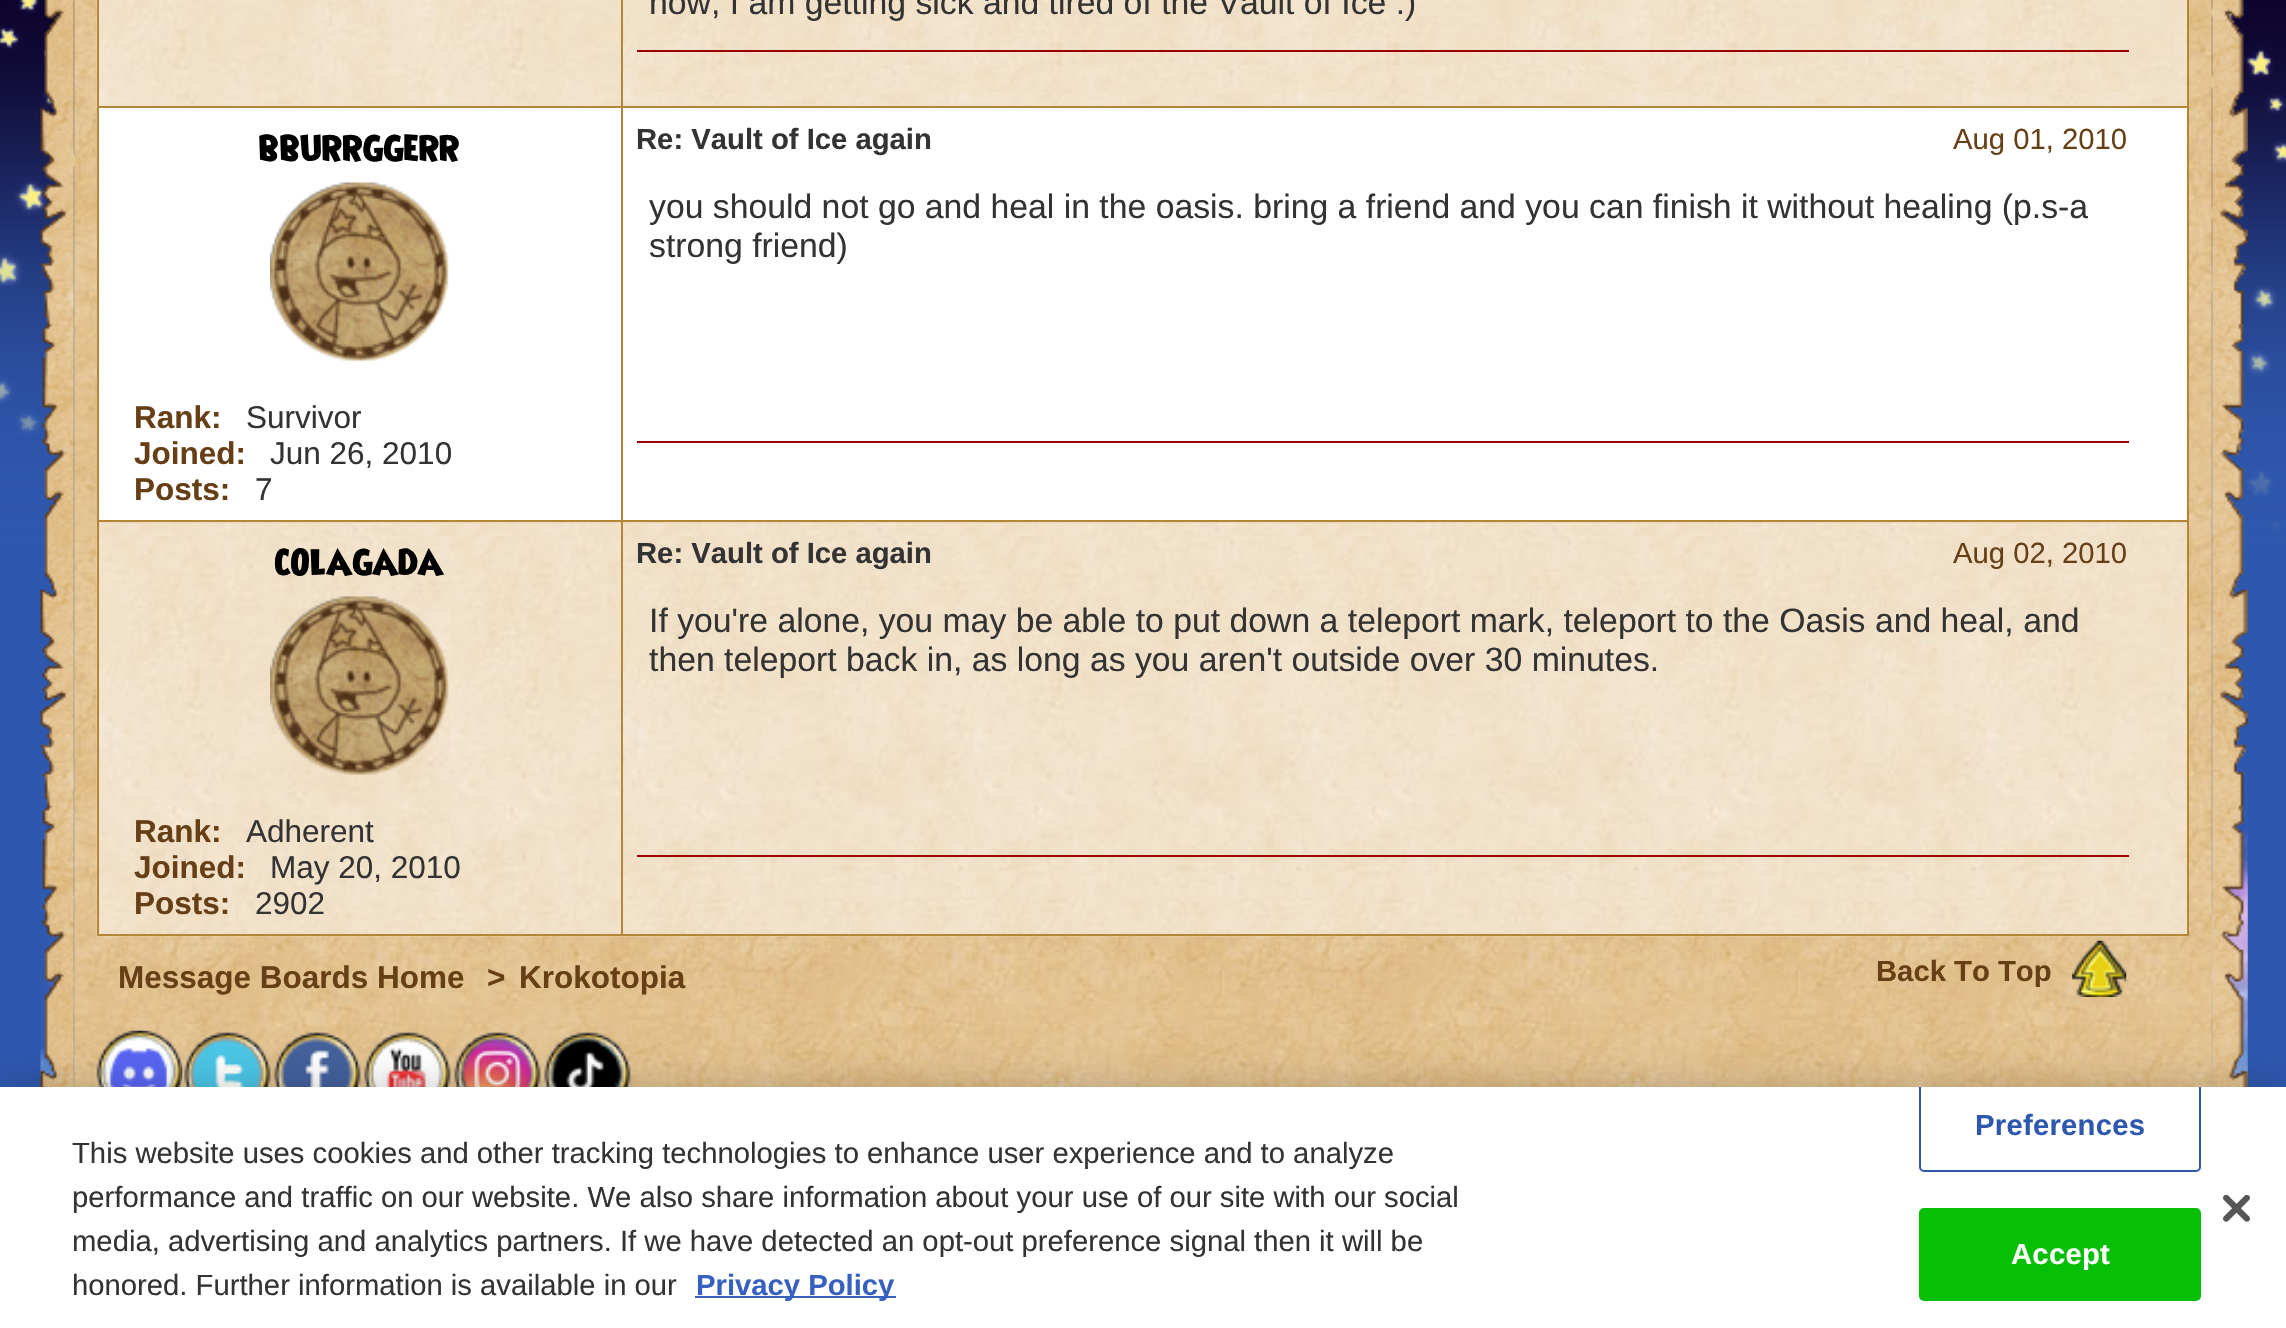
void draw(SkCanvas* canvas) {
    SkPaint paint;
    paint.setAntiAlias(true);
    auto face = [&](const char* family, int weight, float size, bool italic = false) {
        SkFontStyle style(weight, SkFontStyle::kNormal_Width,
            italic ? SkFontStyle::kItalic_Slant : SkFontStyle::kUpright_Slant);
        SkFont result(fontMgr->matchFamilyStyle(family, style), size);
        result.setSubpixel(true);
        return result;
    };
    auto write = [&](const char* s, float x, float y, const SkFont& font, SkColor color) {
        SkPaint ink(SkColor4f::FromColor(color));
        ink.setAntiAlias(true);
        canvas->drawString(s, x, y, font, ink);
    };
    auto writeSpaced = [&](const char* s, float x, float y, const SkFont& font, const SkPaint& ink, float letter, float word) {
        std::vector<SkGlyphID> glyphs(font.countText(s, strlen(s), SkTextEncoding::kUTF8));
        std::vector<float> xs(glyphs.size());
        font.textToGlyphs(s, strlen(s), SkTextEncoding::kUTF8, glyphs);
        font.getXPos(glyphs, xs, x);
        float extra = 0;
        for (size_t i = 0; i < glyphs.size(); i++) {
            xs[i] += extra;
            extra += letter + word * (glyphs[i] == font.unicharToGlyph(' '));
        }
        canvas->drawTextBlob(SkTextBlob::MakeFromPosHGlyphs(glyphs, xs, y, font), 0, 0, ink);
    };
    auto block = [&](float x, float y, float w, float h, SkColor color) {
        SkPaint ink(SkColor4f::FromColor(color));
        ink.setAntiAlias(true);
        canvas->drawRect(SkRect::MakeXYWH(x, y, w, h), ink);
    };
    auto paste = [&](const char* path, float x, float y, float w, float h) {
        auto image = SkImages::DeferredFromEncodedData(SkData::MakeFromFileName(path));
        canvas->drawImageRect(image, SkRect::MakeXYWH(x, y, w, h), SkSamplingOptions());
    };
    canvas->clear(SkColorSetRGB(46, 88, 174));
    paste("pic1.png", 0, 0, 2286, 542);
    paste("pic2.png", 40, 768, 2208, 319);
    paste("pic3.png", 40, 0, 35, 1087);
    paste("pic4.png", 2211, 0, 37, 1087);
    paste("pic5.png", 74, 0, 2138, 1087);
    paste("pic6.png", 96, 0, 525, 109);
    block(99, 108, 2088, 412, SK_ColorWHITE);
    paste("pic15.png", 621, 522, 1566, 415);
    block(2187, 0, 2, 936, SkColorSetRGB(181, 134, 55));
    block(621, 934, 1568, 2, SkColorSetRGB(181, 134, 55));
    block(621, 520, 2, 416, SkColorSetRGB(181, 134, 55));
    block(621, 520, 1568, 2, SkColorSetRGB(181, 134, 55));
    block(621, 106, 2, 416, SkColorSetRGB(181, 134, 55));
    block(621, 106, 1568, 2, SkColorSetRGB(181, 134, 55));
    block(621, 0, 2, 108, SkColorSetRGB(181, 134, 55));
    paste("pic12.png", 96, 522, 525, 415);
    block(97, 934, 526, 2, SkColorSetRGB(181, 134, 55));
    block(97, 520, 2, 416, SkColorSetRGB(181, 134, 55));
    block(97, 520, 526, 2, SkColorSetRGB(181, 134, 55));
    block(97, 106, 2, 416, SkColorSetRGB(181, 134, 55));
    block(97, 106, 526, 2, SkColorSetRGB(181, 134, 55));
    block(97, 0, 2, 108, SkColorSetRGB(181, 134, 55));
    paste("pic7.png", 623, 0, 1564, 106);
    paste("pic8.png", 637, 0, 1537, 93);
    auto kFont1 = face("Liberation Sans", 400, 33.75f);
    write("now, I am getting sick and tired of the Vault of Ice :)", 649, 14, kFont1, SkColorSetRGB(51, 51, 51));
    block(637, 50, 1492, 2, SkColorSetRGB(153, 0, 0));
    paste("pic9.png", 637, 65, 1465, 28);
    paste("pic10.png", 2102, 72, 23, 21);
    auto kFont2 = face("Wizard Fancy", 400, 36);
    write("bburrggerr", 258, 160, kFont2, SK_ColorBLACK);
    paste("pic11.png", 270, 182, 179, 179);
    auto kFont3 = face("Liberation Sans", 700, 31.5f);
    write("Rank:", 134, 428, kFont3, SkColorSetRGB(103, 63, 22));
    auto kFont4 = face("Liberation Sans", 400, 31.5f);
    write("Survivor", 246, 428, kFont4, SkColorSetRGB(51, 51, 51));
    write("Joined:", 134, 464, kFont3, SkColorSetRGB(103, 63, 22));
    write("Jun 26, 2010", 270, 464, kFont4, SkColorSetRGB(51, 51, 51));
    write("Posts:", 134, 500, kFont3, SkColorSetRGB(103, 63, 22));
    write("7", 255, 500, kFont4, SkColorSetRGB(51, 51, 51));
    auto kFont5 = face("Liberation Sans", 700, 29.25f);
    write("Re: Vault of Ice again", 636, 149, kFont5, SkColorSetRGB(51, 51, 51));
    auto kFont6 = face("Liberation Sans", 400, 29.25f);
    write("Aug 01, 2010", 1953, 149, kFont6, SkColorSetRGB(103, 63, 22));
    write("you should not go and heal in the oasis. bring a friend and you can finish it without healing (p.s-a", 649, 218, kFont1, SkColorSetRGB(51, 51, 51));
    write("strong friend)", 649, 257, kFont1, SkColorSetRGB(51, 51, 51));
    block(637, 441, 1492, 2, SkColorSetRGB(153, 0, 0));
    paste("pic13.png", 112, 536, 495, 385);
    write("colagada", 274, 574, kFont2, SK_ColorBLACK);
    paste("pic14.png", 270, 596, 179, 179);
    write("Rank:", 134, 842, kFont3, SkColorSetRGB(103, 63, 22));
    write("Adherent", 246, 842, kFont4, SkColorSetRGB(51, 51, 51));
    write("Joined:", 134, 878, kFont3, SkColorSetRGB(103, 63, 22));
    write("May 20, 2010", 270, 878, kFont4, SkColorSetRGB(51, 51, 51));
    write("Posts:", 134, 914, kFont3, SkColorSetRGB(103, 63, 22));
    write("2902", 255, 914, kFont4, SkColorSetRGB(51, 51, 51));
    paste("pic16.png", 637, 536, 1537, 362);
    write("Re: Vault of Ice again", 636, 563, kFont5, SkColorSetRGB(51, 51, 51));
    paste("pic17.png", 1953, 536, 175, 34);
    paste("pic18.png", 1953, 569, 173, 19);
    write("Aug 02, 2010", 1953, 563, kFont6, SkColorSetRGB(103, 63, 22));
    write("If you're alone, you may be able to put down a teleport mark, teleport to the Oasis and heal, and", 649, 632, kFont1, SkColorSetRGB(51, 51, 51));
    write("then teleport back in, as long as you aren't outside over 30 minutes.", 649, 671, kFont1, SkColorSetRGB(51, 51, 51));
    block(637, 855, 1492, 2, SkColorSetRGB(153, 0, 0));
    paste("pic19.png", 654, 871, 1442, 21);
    paste("pic20.png", 2101, 871, 25, 22);
    write("Message Boards Home", 118, 988, kFont3, SkColorSetRGB(103, 63, 22));
    write(">", 487, 988, kFont3, SkColorSetRGB(103, 63, 22));
    write("Krokotopia", 519, 988, kFont3, SkColorSetRGB(103, 63, 22));
    write("Back To Top", 1876, 981, kFont5, SkColorSetRGB(103, 63, 22));
    paste("pic21.png", 2072, 940, 55, 57);
    paste("pic22.png", 96, 1030, 87, 57);
    paste("pic23.png", 184, 1032, 87, 55);
    paste("pic24.png", 274, 1032, 87, 55);
    paste("pic25.png", 364, 1032, 87, 55);
    paste("pic26.png", 454, 1032, 87, 55);
    paste("pic27.png", 544, 1032, 87, 55);
    paint.setColor(SkColorSetARGB(51, 0, 0, 0));
    paint.setMaskFilter(SkMaskFilter::MakeBlur(kNormal_SkBlurStyle, 20));
    canvas->drawRect(SkRect::MakeXYWH(0, 1087, 2286, 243), paint);
    paint.setMaskFilter(nullptr);
    block(0, 1087, 2286, 241, SK_ColorWHITE);
    write("This website uses cookies and other tracking technologies to enhance user experience and to analyze", 72, 1163, kFont6, SkColorSetRGB(51, 51, 51));
    write("performance and traffic on our website. We also share information about your use of our site with our social", 72, 1207, kFont6, SkColorSetRGB(51, 51, 51));
    write("media, advertising and analytics partners. If we have detected an opt-out preference signal then it will be", 72, 1251, kFont6, SkColorSetRGB(51, 51, 51));
    write("honored. Further information is available in our", 72, 1295, kFont6, SkColorSetRGB(51, 51, 51));
    block(695, 1296, 201, 2, SkColorSetRGB(56, 96, 190));
    write("Privacy Policy", 696, 1295, kFont5, SkColorSetRGB(56, 96, 190));
    canvas->save();
    canvas->clipRect(SkRect::MakeXYWH(0, 1087, 2286, 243));
    paint.setStyle(SkPaint::kStroke_Style);
    paint.setStrokeWidth(2);
    paint.setColor(SkColorSetRGB(46, 88, 174));
    canvas->drawRoundRect(SkRect::MakeXYWH(1920, 1079, 280, 92), 4, 4, paint);
    canvas->restore();
    paint.setStyle(SkPaint::kFill_Style);
    writeSpaced("Preferences", 1975, 1135, kFont5, paint, 0.25f, 0);
    paint.setColor(SkColorSetRGB(6, 191, 6));
    canvas->drawRoundRect(SkRect::MakeXYWH(1920, 1209, 280, 91), 4, 4, paint);
    paint.setStyle(SkPaint::kStroke_Style);
    canvas->drawRoundRect(SkRect::MakeXYWH(1920, 1209, 280, 91), 4, 4, paint);
    paint.setStyle(SkPaint::kFill_Style);
    paint.setColor(SK_ColorWHITE);
    writeSpaced("Accept", 2011, 1264, kFont5, paint, 0.25f, 0);
    paste("pic28.png", 2223, 1195, 27, 27);
}
